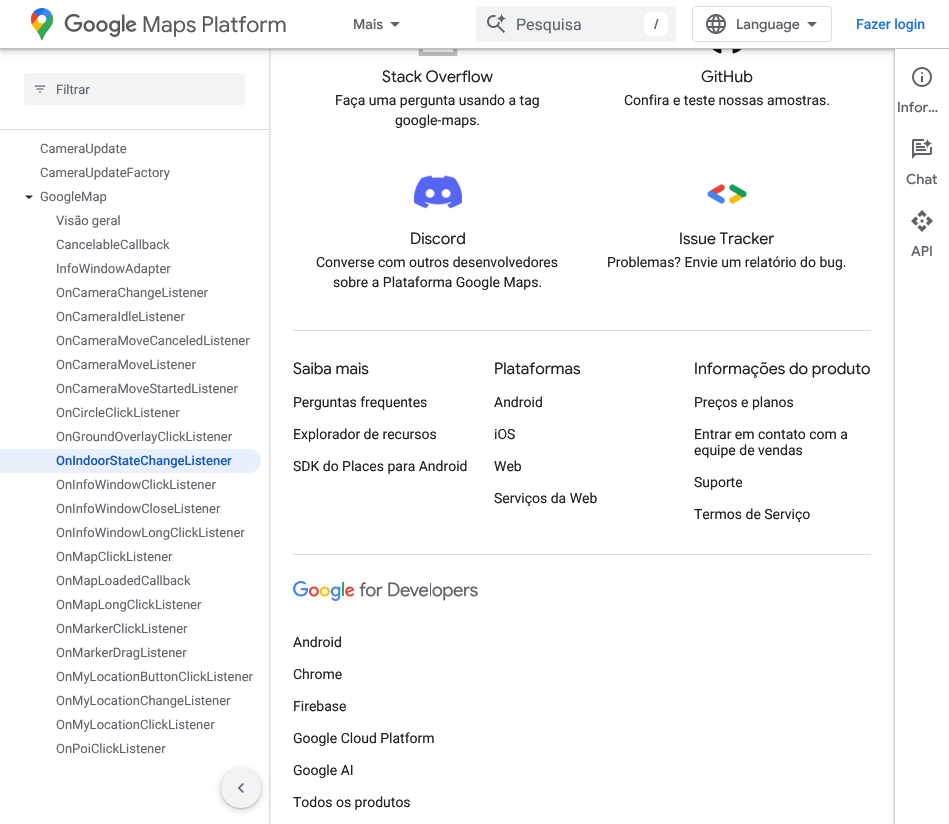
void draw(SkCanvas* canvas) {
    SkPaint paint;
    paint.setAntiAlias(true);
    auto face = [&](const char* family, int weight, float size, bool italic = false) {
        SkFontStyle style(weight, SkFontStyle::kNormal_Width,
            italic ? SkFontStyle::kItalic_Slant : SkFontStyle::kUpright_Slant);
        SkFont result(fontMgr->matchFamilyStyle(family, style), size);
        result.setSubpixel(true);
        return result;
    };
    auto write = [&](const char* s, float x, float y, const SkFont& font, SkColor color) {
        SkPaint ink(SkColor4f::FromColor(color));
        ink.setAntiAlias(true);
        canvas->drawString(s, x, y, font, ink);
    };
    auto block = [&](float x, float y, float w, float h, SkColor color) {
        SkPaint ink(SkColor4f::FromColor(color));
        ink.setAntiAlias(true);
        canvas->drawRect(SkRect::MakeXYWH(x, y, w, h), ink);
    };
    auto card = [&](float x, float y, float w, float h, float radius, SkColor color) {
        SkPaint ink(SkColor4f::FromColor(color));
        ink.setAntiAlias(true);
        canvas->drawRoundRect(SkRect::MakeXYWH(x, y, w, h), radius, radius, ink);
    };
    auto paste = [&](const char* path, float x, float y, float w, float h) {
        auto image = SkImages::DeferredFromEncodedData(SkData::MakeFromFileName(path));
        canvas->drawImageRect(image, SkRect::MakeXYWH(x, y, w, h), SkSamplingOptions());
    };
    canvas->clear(SK_ColorWHITE);
    paint.setColor(SkColorSetARGB(38, 60, 64, 67));
    paint.setMaskFilter(SkMaskFilter::MakeBlur(kNormal_SkBlurStyle, 1.5f));
    canvas->drawRect(SkRect::MakeXYWH(-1, 0, 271, 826), paint);
    paint.setMaskFilter(nullptr);
    paint.setColor(SkColorSetARGB(77, 60, 64, 67));
    paint.setMaskFilter(SkMaskFilter::MakeBlur(kNormal_SkBlurStyle, 1));
    canvas->drawRect(SkRect::MakeXYWH(0, 1, 269, 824), paint);
    paint.setMaskFilter(nullptr);
    block(0, 130, 269, 694, SK_ColorWHITE);
    block(0, 49, 269, 80, SK_ColorWHITE);
    paste("pic6.png", 418, 49, 40, 7);
    paste("pic7.png", 712, 49, 30, 5);
    paint.setColor(SkColorSetARGB(38, 60, 64, 67));
    paint.setMaskFilter(SkMaskFilter::MakeBlur(kNormal_SkBlurStyle, 3));
    canvas->drawRect(SkRect::MakeXYWH(-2, -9, 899, 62), paint);
    paint.setMaskFilter(nullptr);
    paint.setColor(SkColorSetARGB(77, 60, 64, 67));
    paint.setMaskFilter(SkMaskFilter::MakeBlur(kNormal_SkBlurStyle, 1));
    canvas->drawRect(SkRect::MakeXYWH(0, -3, 895, 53), paint);
    paint.setMaskFilter(nullptr);
    paint.setColor(SkColorSetARGB(38, 0, 0, 0));
    paint.setMaskFilter(SkMaskFilter::MakeBlur(kNormal_SkBlurStyle, 1.5f));
    canvas->drawRect(SkRect::MakeXYWH(894, 48, 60, 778), paint);
    paint.setMaskFilter(nullptr);
    paint.setColor(SkColorSetARGB(77, 0, 0, 0));
    paint.setMaskFilter(SkMaskFilter::MakeBlur(kNormal_SkBlurStyle, 1));
    canvas->drawRect(SkRect::MakeXYWH(895, 49, 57, 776), paint);
    paint.setMaskFilter(nullptr);
    block(0, 0, 949, 48, SK_ColorWHITE);
    block(0, 48, 949, 1, SkColorSetRGB(189, 193, 198));
    paste("pic1.png", 31, 8, 22, 32);
    paste("pic2.png", 64, 13, 73, 24);
    auto kFont1 = face("Google Sans", 400, 22);
    write("Maps Platform", 142, 32, kFont1, SkColorSetRGB(89, 89, 89));
    auto kFont2 = face("Google Sans", 500, 14);
    write("Mais", 353, 29, kFont2, SkColorSetRGB(95, 99, 104));
    paint.setColor(SkColorSetRGB(95, 99, 104));
    canvas->drawPath(SkPathBuilder().moveTo(390, 22).lineTo(400, 22).lineTo(395, 27).close().detach(), paint);
    card(476, 6, 200, 36, 4, SkColorSetRGB(241, 243, 244));
    paste("pic3.png", 487, 13, 20, 20);
    auto kFont3 = face("Roboto", 400, 16);
    write("Pesquisa", 516, 30, kFont3, SkColorSetRGB(95, 99, 104));
    card(644, 12, 24, 24, 8, SK_ColorWHITE);
    write("/", 654, 29, kFont2, SkColorSetRGB(95, 99, 104));
    paint.setStyle(SkPaint::kStroke_Style);
    paint.setStrokeWidth(1);
    paint.setColor(SkColorSetRGB(218, 220, 224));
    canvas->drawRoundRect(SkRect::MakeXYWH(692.5f, 6.5f, 139, 35), 3.5f, 3.5f, paint);
    paste("pic4.png", 706, 14, 20, 20);
    write("Language", 736, 29, kFont2, SkColorSetRGB(95, 99, 104));
    paint.setStyle(SkPaint::kFill_Style);
    paint.setColor(SkColorSetRGB(95, 99, 104));
    canvas->drawPath(SkPathBuilder().moveTo(812, 27).lineTo(807, 22).lineTo(817, 22).close().detach(), paint);
    auto kFont4 = face("Roboto", 500, 14);
    write("Fazer login", 856, 29, kFont4, SkColorSetRGB(26, 115, 232));
    block(0, 129, 269, 1, SkColorSetRGB(218, 220, 224));
    card(24, 73, 221, 32, 4, SkColorSetRGB(241, 243, 244));
    paste("pic5.png", 34, 85, 12, 8);
    auto kFont5 = face("Roboto", 400, 13);
    write("Filtrar", 56, 94, kFont5, SkColorSetRGB(95, 99, 104));
    write("CameraUpdate", 40, 153, kFont5, SkColorSetRGB(95, 99, 104));
    write("CameraUpdateFactory", 40, 177, kFont5, SkColorSetRGB(95, 99, 104));
    paint.setColor(SkColorSetRGB(32, 33, 36));
    canvas->drawPath(SkPathBuilder().moveTo(25, 195.5f).lineTo(33, 195.5f).lineTo(29, 199).close().detach(), paint);
    write("GoogleMap", 40, 201, kFont5, SkColorSetRGB(95, 99, 104));
    write("Visão geral", 56, 225, kFont5, SkColorSetRGB(95, 99, 104));
    write("CancelableCallback", 56, 249, kFont5, SkColorSetRGB(95, 99, 104));
    write("InfoWindowAdapter", 56, 273, kFont5, SkColorSetRGB(95, 99, 104));
    write("OnCameraChangeListener", 56, 297, kFont5, SkColorSetRGB(95, 99, 104));
    write("OnCameraIdleListener", 56, 321, kFont5, SkColorSetRGB(95, 99, 104));
    write("OnCameraMoveCanceledListener", 56, 345, kFont5, SkColorSetRGB(95, 99, 104));
    write("OnCameraMoveListener", 56, 369, kFont5, SkColorSetRGB(95, 99, 104));
    write("OnCameraMoveStartedListener", 56, 393, kFont5, SkColorSetRGB(95, 99, 104));
    write("OnCircleClickListener", 56, 417, kFont5, SkColorSetRGB(95, 99, 104));
    write("OnGroundOverlayClickListener", 56, 441, kFont5, SkColorSetRGB(95, 99, 104));
    paint.setColor(SkColorSetRGB(232, 240, 254));
    canvas->drawPath(SkPathBuilder().moveTo(0, 449).lineTo(249, 449).cubicTo(255.5f, 449, 261, 454.5f, 261, 461).cubicTo(261, 467.5f, 255.5f, 473, 249, 473).lineTo(0, 473).close().detach(), paint);
    auto kFont6 = face("Roboto", 500, 13);
    write("OnIndoorStateChangeListener", 56, 465, kFont6, SkColorSetRGB(24, 90, 188));
    write("OnInfoWindowClickListener", 56, 489, kFont5, SkColorSetRGB(95, 99, 104));
    write("OnInfoWindowCloseListener", 56, 513, kFont5, SkColorSetRGB(95, 99, 104));
    write("OnInfoWindowLongClickListener", 56, 537, kFont5, SkColorSetRGB(95, 99, 104));
    write("OnMapClickListener", 56, 561, kFont5, SkColorSetRGB(95, 99, 104));
    write("OnMapLoadedCallback", 56, 585, kFont5, SkColorSetRGB(95, 99, 104));
    write("OnMapLongClickListener", 56, 609, kFont5, SkColorSetRGB(95, 99, 104));
    write("OnMarkerClickListener", 56, 633, kFont5, SkColorSetRGB(95, 99, 104));
    write("OnMarkerDragListener", 56, 657, kFont5, SkColorSetRGB(95, 99, 104));
    write("OnMyLocationButtonClickListener", 56, 681, kFont5, SkColorSetRGB(95, 99, 104));
    write("OnMyLocationChangeListener", 56, 705, kFont5, SkColorSetRGB(95, 99, 104));
    write("OnMyLocationClickListener", 56, 729, kFont5, SkColorSetRGB(95, 99, 104));
    write("OnPoiClickListener", 56, 753, kFont5, SkColorSetRGB(95, 99, 104));
    block(293, 330, 578, 1, SkColorSetRGB(218, 220, 224));
    auto kFont7 = face("Google Sans", 400, 16);
    write("Stack Overflow", 382, 82, kFont7, SkColorSetRGB(33, 33, 33));
    auto kFont8 = face("Roboto", 400, 14);
    write("Faça uma pergunta usando a tag", 335, 105, kFont8, SkColorSetRGB(33, 33, 33));
    write("google-maps.", 395, 125, kFont8, SkColorSetRGB(33, 33, 33));
    write("GitHub", 701, 82, kFont7, SkColorSetRGB(33, 33, 33));
    write("Confira e teste nossas amostras.", 624, 105, kFont8, SkColorSetRGB(33, 33, 33));
    paste("pic8.png", 414, 175, 48, 34);
    write("Discord", 410, 244, kFont7, SkColorSetRGB(33, 33, 33));
    write("Converse com outros desenvolvedores", 316, 267, kFont8, SkColorSetRGB(33, 33, 33));
    write("sobre a Plataforma Google Maps.", 333, 287, kFont8, SkColorSetRGB(33, 33, 33));
    paste("pic9.png", 707, 184, 40, 20);
    write("Issue Tracker", 679, 244, kFont7, SkColorSetRGB(33, 33, 33));
    write("Problemas? Envie um relatório do bug.", 607, 267, kFont8, SkColorSetRGB(33, 33, 33));
    block(895, 49, 54, 775, SK_ColorWHITE);
    paste("pic10.png", 912, 67, 20, 20);
    write("Infor…", 897, 112, kFont2, SkColorSetRGB(95, 99, 104));
    paste("pic11.png", 912, 138, 21, 21);
    write("Chat", 906, 184, kFont2, SkColorSetRGB(95, 99, 104));
    paste("pic12.png", 911, 210, 22, 22);
    write("API", 911, 256, kFont2, SkColorSetRGB(95, 99, 104));
    block(293, 554, 578, 1, SkColorSetRGB(218, 220, 224));
    write("Saiba mais", 293, 374, kFont7, SkColorSetRGB(33, 33, 33));
    write("Perguntas frequentes", 293, 407, kFont8, SkColorSetRGB(33, 33, 33));
    write("Explorador de recursos", 293, 439, kFont8, SkColorSetRGB(33, 33, 33));
    write("SDK do Places para Android", 293, 471, kFont8, SkColorSetRGB(33, 33, 33));
    write("Plataformas", 494, 374, kFont7, SkColorSetRGB(33, 33, 33));
    write("Android", 494, 407, kFont8, SkColorSetRGB(33, 33, 33));
    write("iOS", 494, 439, kFont8, SkColorSetRGB(33, 33, 33));
    write("Web", 494, 471, kFont8, SkColorSetRGB(33, 33, 33));
    write("Serviços da Web", 494, 503, kFont8, SkColorSetRGB(33, 33, 33));
    write("Informações do produto", 694, 374, kFont7, SkColorSetRGB(33, 33, 33));
    write("Preços e planos", 694, 407, kFont8, SkColorSetRGB(33, 33, 33));
    write("Entrar em contato com a", 694, 439, kFont8, SkColorSetRGB(33, 33, 33));
    write("equipe de vendas", 694, 455, kFont8, SkColorSetRGB(33, 33, 33));
    write("Suporte", 694, 487, kFont8, SkColorSetRGB(33, 33, 33));
    write("Termos de Serviço", 694, 519, kFont8, SkColorSetRGB(33, 33, 33));
    paste("pic13.png", 293, 581, 185, 20);
    write("Android", 293, 647, kFont8, SkColorSetRGB(33, 33, 33));
    write("Chrome", 293, 679, kFont8, SkColorSetRGB(33, 33, 33));
    write("Firebase", 293, 711, kFont8, SkColorSetRGB(33, 33, 33));
    write("Google Cloud Platform", 293, 743, kFont8, SkColorSetRGB(33, 33, 33));
    write("Google AI", 293, 775, kFont8, SkColorSetRGB(33, 33, 33));
    write("Todos os produtos", 293, 807, kFont8, SkColorSetRGB(33, 33, 33));
    paint.setColor(SkColorSetARGB(38, 60, 64, 67));
    paint.setMaskFilter(SkMaskFilter::MakeBlur(kNormal_SkBlurStyle, 3));
    canvas->drawRoundRect(SkRect::MakeXYWH(219, 768, 44, 44), 22, 22, paint);
    paint.setMaskFilter(nullptr);
    paint.setColor(SkColorSetARGB(77, 60, 64, 67));
    paint.setMaskFilter(SkMaskFilter::MakeBlur(kNormal_SkBlurStyle, 1));
    canvas->drawRoundRect(SkRect::MakeXYWH(221, 769, 40, 40), 20, 20, paint);
    paint.setMaskFilter(nullptr);
    paint.setColor(SkColorSetRGB(241, 243, 244));
    canvas->drawCircle(241, 788, 20, paint);
    paste("pic14.png", 237, 783, 7, 10);
}
